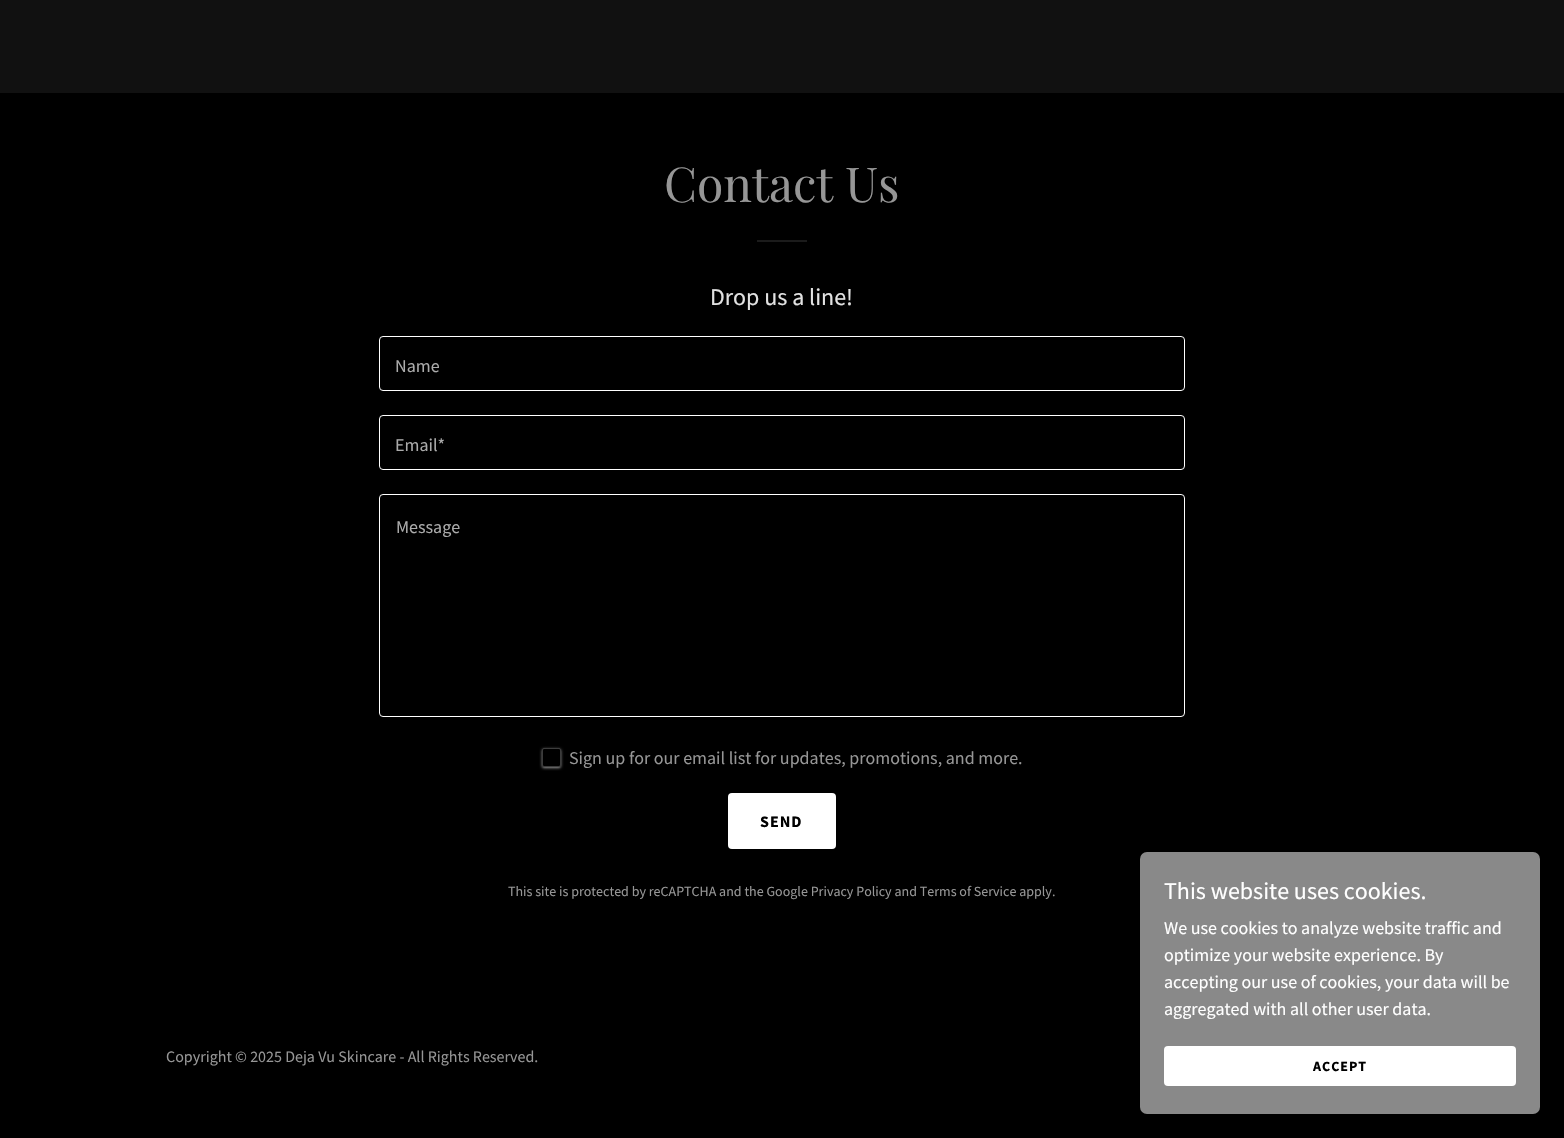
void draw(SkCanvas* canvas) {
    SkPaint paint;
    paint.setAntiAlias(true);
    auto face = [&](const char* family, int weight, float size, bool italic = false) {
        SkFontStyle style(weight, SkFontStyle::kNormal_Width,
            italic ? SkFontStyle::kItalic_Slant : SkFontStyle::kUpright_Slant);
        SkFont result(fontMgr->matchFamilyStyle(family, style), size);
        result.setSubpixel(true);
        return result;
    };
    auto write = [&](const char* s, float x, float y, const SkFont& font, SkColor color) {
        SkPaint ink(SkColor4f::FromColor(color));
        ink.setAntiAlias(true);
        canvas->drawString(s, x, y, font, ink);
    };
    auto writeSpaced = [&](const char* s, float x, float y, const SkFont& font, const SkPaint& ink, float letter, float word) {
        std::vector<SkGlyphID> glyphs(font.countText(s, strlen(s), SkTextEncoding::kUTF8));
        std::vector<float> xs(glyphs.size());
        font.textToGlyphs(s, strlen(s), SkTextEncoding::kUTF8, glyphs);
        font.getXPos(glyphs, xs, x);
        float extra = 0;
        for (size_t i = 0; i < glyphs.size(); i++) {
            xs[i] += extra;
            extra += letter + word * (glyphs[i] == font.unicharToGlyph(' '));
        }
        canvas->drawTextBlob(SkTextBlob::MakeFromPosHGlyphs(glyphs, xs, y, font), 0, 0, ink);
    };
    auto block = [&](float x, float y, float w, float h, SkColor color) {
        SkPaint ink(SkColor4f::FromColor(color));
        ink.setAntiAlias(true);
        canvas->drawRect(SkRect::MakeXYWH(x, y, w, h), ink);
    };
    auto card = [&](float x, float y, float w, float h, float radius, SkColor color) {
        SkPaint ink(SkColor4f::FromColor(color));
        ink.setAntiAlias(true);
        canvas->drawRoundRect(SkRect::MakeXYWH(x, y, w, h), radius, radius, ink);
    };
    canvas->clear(SK_ColorBLACK);
    block(0, 0, 1564, 93, SkColorSetRGB(17, 17, 17));
    auto kFont1 = face("Playfair Display", 400, 48);
    write("Contact Us", 664, 202, kFont1, SkColorSetRGB(150, 150, 150));
    block(757, 240, 50, 2, SkColorSetRGB(27, 27, 27));
    auto kFont2 = face("Source Sans Pro", 400, 24);
    write("Drop us a line!", 710, 305, kFont2, SkColorSetRGB(226, 226, 226));
    paint.setStyle(SkPaint::kStroke_Style);
    paint.setStrokeWidth(1);
    paint.setColor(SK_ColorWHITE);
    canvas->drawRoundRect(SkRect::MakeXYWH(379.5f, 336.5f, 805, 54), 3.5f, 3.5f, paint);
    auto kFont3 = face("Source Sans Pro", 400, 18);
    write("Name", 395, 372, kFont3, SkColorSetRGB(171, 171, 171));
    canvas->drawRoundRect(SkRect::MakeXYWH(379.5f, 415.5f, 805, 54), 3.5f, 3.5f, paint);
    write("Email*", 395, 451, kFont3, SkColorSetRGB(171, 171, 171));
    canvas->drawRoundRect(SkRect::MakeXYWH(379.5f, 494.5f, 805, 222), 3.5f, 3.5f, paint);
    write("Message", 396, 533, kFont3, SkColorSetRGB(171, 171, 171));
    canvas->save();
    canvas->clipPath(SkPathBuilder(SkPathFillType::kEvenOdd).moveTo(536, 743).lineTo(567, 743).lineTo(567, 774).lineTo(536, 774).close().moveTo(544, 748).lineTo(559, 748).cubicTo(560, 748, 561, 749, 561, 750).lineTo(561, 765).cubicTo(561, 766, 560, 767, 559, 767).lineTo(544, 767).cubicTo(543, 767, 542, 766, 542, 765).lineTo(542, 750).cubicTo(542, 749, 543, 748, 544, 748).close().detach(), true);
    paint.setStyle(SkPaint::kFill_Style);
    paint.setColor(SkColorSetRGB(150, 150, 150));
    paint.setMaskFilter(SkMaskFilter::MakeBlur(kNormal_SkBlurStyle, 1.5f));
    canvas->drawRoundRect(SkRect::MakeXYWH(542, 749, 19, 19), 2, 2, paint);
    paint.setMaskFilter(nullptr);
    canvas->restore();
    paint.setStyle(SkPaint::kStroke_Style);
    paint.setColor(SkColorSetARGB(128, 119, 119, 119));
    canvas->drawRoundRect(SkRect::MakeXYWH(542.5f, 748.5f, 18, 18), 1.5f, 1.5f, paint);
    write("Sign up for our email list for updates, promotions, and more.", 569, 764, kFont3, SkColorSetRGB(150, 150, 150));
    card(728, 793, 108, 56, 4, SK_ColorWHITE);
    auto kFont4 = face("Source Sans Pro", 700, 16);
    paint.setStyle(SkPaint::kFill_Style);
    paint.setColor(SK_ColorBLACK);
    writeSpaced("SEND", 760, 827, kFont4, paint, 1, 0);
    auto kFont5 = face("Source Sans Pro", 400, 14);
    write("This site is protected by reCAPTCHA and the Google Privacy Policy and Terms of Service apply.", 508, 896, kFont5, SkColorSetRGB(150, 150, 150));
    auto kFont6 = face("Source Sans Pro", 400, 16);
    write("Copyright © 2025 Deja Vu Skincare - All Rights Reserved.", 166, 1062, kFont6, SkColorSetRGB(150, 150, 150));
    card(1140, 852, 400, 262, 7, SkColorSetRGB(137, 137, 137));
    write("This website uses cookies.", 1164, 899, kFont2, SK_ColorWHITE);
    write("We use cookies to analyze website traffic and", 1164, 934, kFont3, SK_ColorWHITE);
    write("optimize your website experience. By", 1164, 961, kFont3, SK_ColorWHITE);
    write("accepting our use of cookies, your data will be", 1164, 988, kFont3, SK_ColorWHITE);
    write("aggregated with all other user data.", 1164, 1015, kFont3, SK_ColorWHITE);
    card(1164, 1046, 352, 40, 4, SK_ColorWHITE);
    auto kFont7 = face("Source Sans Pro", 700, 14);
    writeSpaced("ACCEPT", 1313, 1071, kFont7, paint, 1, 0);
}
